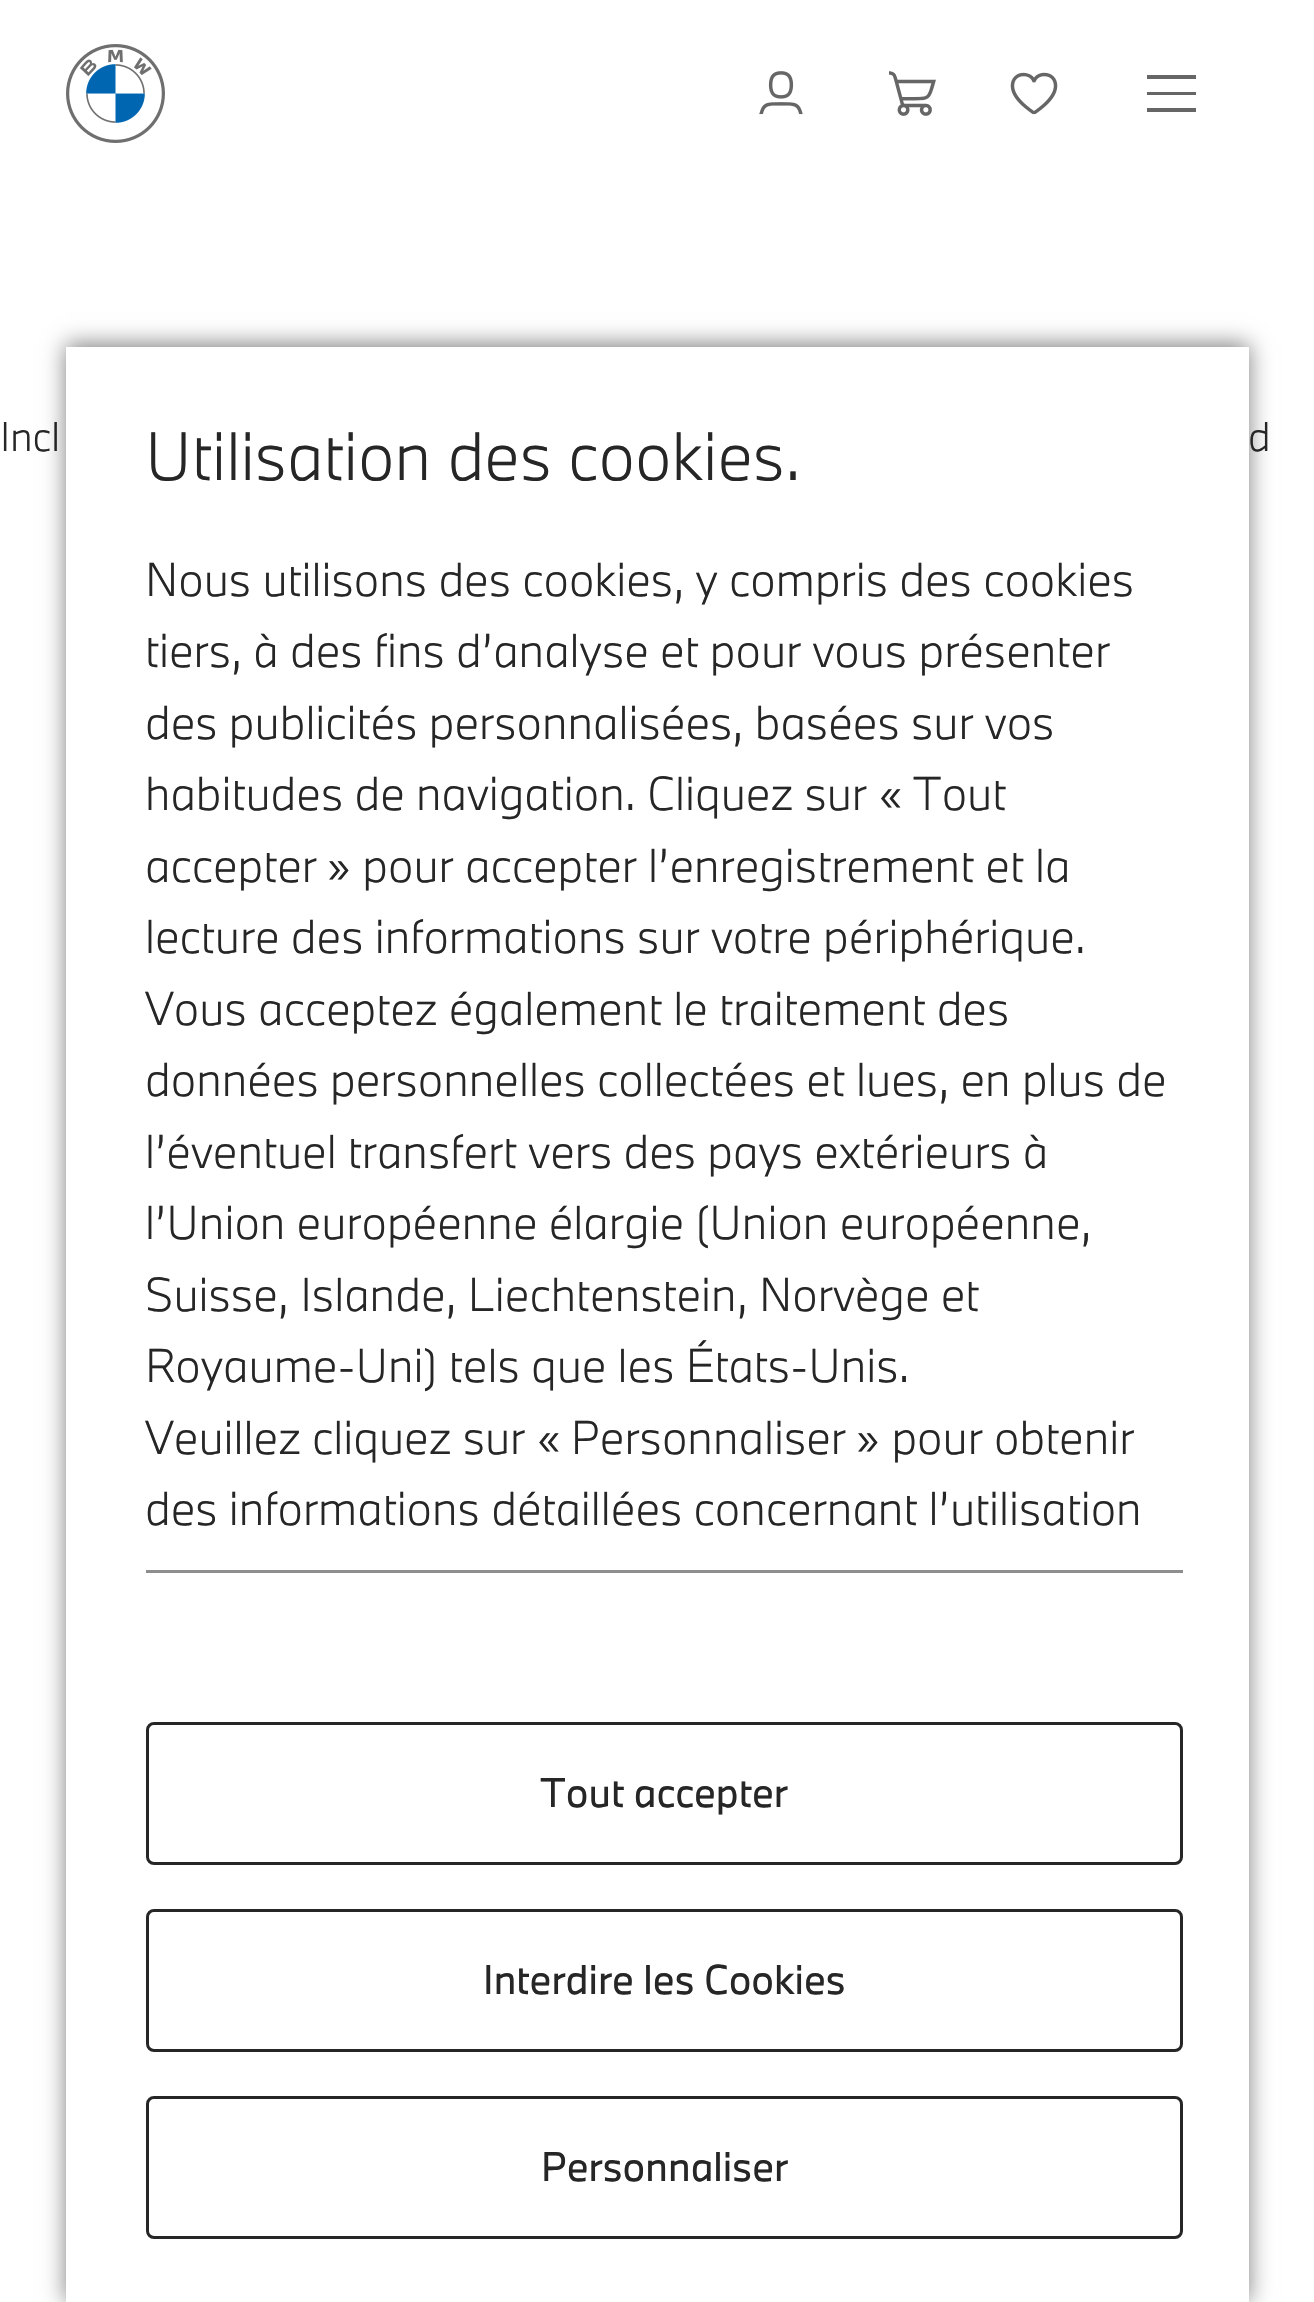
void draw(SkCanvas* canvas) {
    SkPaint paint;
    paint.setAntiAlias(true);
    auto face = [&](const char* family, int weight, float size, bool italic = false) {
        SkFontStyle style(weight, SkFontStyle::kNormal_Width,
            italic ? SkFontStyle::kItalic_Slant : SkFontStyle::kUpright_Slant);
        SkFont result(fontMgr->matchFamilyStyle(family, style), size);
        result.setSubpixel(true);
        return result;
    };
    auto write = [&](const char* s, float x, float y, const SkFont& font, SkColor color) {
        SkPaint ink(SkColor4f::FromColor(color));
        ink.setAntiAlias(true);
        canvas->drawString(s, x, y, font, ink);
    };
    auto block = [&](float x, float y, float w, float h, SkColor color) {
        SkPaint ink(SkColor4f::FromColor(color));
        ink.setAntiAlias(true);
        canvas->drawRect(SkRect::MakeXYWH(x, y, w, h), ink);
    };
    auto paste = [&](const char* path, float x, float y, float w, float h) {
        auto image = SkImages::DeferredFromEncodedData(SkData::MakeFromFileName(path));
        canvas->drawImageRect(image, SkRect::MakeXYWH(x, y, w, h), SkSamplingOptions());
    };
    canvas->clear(SK_ColorWHITE);
    paste("pic1.png", 66, 44, 99, 99);
    paste("pic2.png", 759, 71, 44, 44);
    paste("pic3.png", 889, 71, 47, 45);
    paste("pic4.png", 1010, 72, 48, 43);
    paint.setColor(SkColorSetRGB(102, 102, 102));
    canvas->drawPath(SkPathBuilder().moveTo(1196, 95).lineTo(1147, 95).lineTo(1147, 92).lineTo(1196, 92).close().moveTo(1196, 79).lineTo(1147, 79).lineTo(1147, 75).lineTo(1196, 75).close().moveTo(1196, 112).lineTo(1147, 112).lineTo(1147, 108).lineTo(1196, 108).close().detach(), paint);
    auto kFont1 = face("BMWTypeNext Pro", 300, 38.5f);
    write("Incl", 0, 451, kFont1, SkColorSetRGB(38, 38, 38));
    paint.setColor(SkColorSetARGB(128, 0, 0, 0));
    paint.setMaskFilter(SkMaskFilter::MakeBlur(kNormal_SkBlurStyle, 11));
    canvas->drawRect(SkRect::MakeXYWH(66, 344, 1183, 1958), paint);
    paint.setMaskFilter(nullptr);
    block(66, 347, 1183, 1955, SK_ColorWHITE);
    auto kFont2 = face("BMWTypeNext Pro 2", 300, 63.25f);
    write("Utilisation des cookies.", 145, 480, kFont2, SkColorSetRGB(38, 38, 38));
    auto kFont3 = face("BMWTypeNext Pro 2", 300, 44);
    write("Nous utilisons des cookies, y compris des cookies", 145, 596, kFont3, SkColorSetRGB(38, 38, 38));
    write("tiers, à des fins d’analyse et pour vous présenter", 145, 667, kFont3, SkColorSetRGB(38, 38, 38));
    write("des publicités personnalisées, basées sur vos", 145, 739, kFont3, SkColorSetRGB(38, 38, 38));
    write("habitudes de navigation. Cliquez sur « Tout", 145, 810, kFont3, SkColorSetRGB(38, 38, 38));
    write("accepter » pour accepter l’enregistrement et la", 145, 882, kFont3, SkColorSetRGB(38, 38, 38));
    write("lecture des informations sur votre périphérique.", 145, 953, kFont3, SkColorSetRGB(38, 38, 38));
    write("Vous acceptez également le traitement des", 145, 1025, kFont3, SkColorSetRGB(38, 38, 38));
    write("données personnelles collectées et lues, en plus de", 145, 1096, kFont3, SkColorSetRGB(38, 38, 38));
    write("l’éventuel transfert vers des pays extérieurs à", 145, 1168, kFont3, SkColorSetRGB(38, 38, 38));
    write("l’Union européenne élargie (Union européenne,", 145, 1239, kFont3, SkColorSetRGB(38, 38, 38));
    write("Suisse, Islande, Liechtenstein, Norvège et", 145, 1311, kFont3, SkColorSetRGB(38, 38, 38));
    write("Royaume-Uni) tels que les États-Unis.", 145, 1382, kFont3, SkColorSetRGB(38, 38, 38));
    write("Veuillez cliquez sur « Personnaliser » pour obtenir", 145, 1454, kFont3, SkColorSetRGB(38, 38, 38));
    write("des informations détaillées concernant l’utilisation", 145, 1525, kFont3, SkColorSetRGB(38, 38, 38));
    block(146, 1570, 1037, 3, SkColorSetRGB(142, 142, 142));
    paint.setStyle(SkPaint::kStroke_Style);
    paint.setStrokeWidth(3);
    paint.setColor(SkColorSetRGB(38, 38, 38));
    canvas->drawRoundRect(SkRect::MakeXYWH(147.5f, 1723.5f, 1034, 140), 6.5f, 6.5f, paint);
    auto kFont4 = face("BMWTypeNext Pro", 400, 38.5f);
    write("Tout accepter", 540, 1807, kFont4, SkColorSetRGB(38, 38, 38));
    canvas->drawRoundRect(SkRect::MakeXYWH(147.5f, 1910.5f, 1034, 140), 6.5f, 6.5f, paint);
    write("Interdire les Cookies", 483, 1994, kFont4, SkColorSetRGB(38, 38, 38));
    canvas->drawRoundRect(SkRect::MakeXYWH(147.5f, 2097.5f, 1034, 140), 6.5f, 6.5f, paint);
    write("Personnaliser", 541, 2181, kFont4, SkColorSetRGB(38, 38, 38));
    write("d", 1248, 451, kFont1, SkColorSetRGB(38, 38, 38));
}
